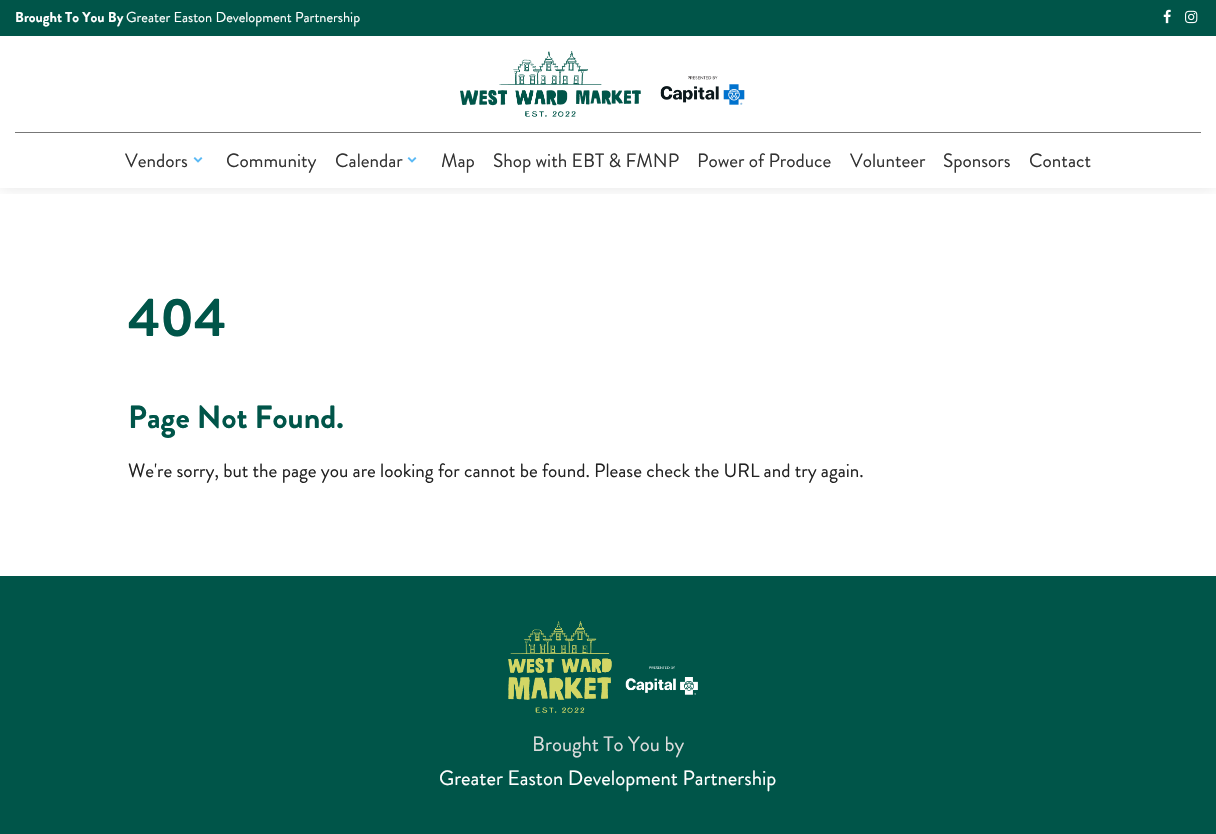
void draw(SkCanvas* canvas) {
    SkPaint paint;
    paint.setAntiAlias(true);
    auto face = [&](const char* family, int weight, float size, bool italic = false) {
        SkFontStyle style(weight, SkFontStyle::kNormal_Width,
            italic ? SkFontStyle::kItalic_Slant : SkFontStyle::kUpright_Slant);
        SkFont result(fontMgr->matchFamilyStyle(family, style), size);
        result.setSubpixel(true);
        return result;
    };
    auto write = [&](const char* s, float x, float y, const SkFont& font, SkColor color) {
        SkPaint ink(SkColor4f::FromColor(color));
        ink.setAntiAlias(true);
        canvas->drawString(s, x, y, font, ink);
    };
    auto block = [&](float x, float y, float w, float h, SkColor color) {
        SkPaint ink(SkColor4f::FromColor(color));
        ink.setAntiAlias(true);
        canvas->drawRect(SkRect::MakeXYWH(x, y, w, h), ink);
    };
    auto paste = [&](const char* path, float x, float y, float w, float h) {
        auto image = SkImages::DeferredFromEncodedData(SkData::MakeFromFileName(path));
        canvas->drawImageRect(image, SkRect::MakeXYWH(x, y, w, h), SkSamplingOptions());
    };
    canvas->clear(SK_ColorWHITE);
    canvas->save();
    canvas->clipRect(SkRect::MakeXYWH(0, 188, 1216, 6));
    paint.setColor(SkColorSetARGB(26, 0, 0, 0));
    paint.setMaskFilter(SkMaskFilter::MakeBlur(kNormal_SkBlurStyle, 7.5f));
    canvas->drawRect(SkRect::MakeXYWH(0, 0, 1216, 188), paint);
    paint.setMaskFilter(nullptr);
    canvas->restore();
    block(0, 0, 1216, 36, SkColorSetRGB(0, 85, 73));
    auto kFont1 = face("Brandon Grotesque", 700, 14.4f);
    write("Brought To You By", 15, 22, kFont1, SK_ColorWHITE);
    auto kFont2 = face("Brandon Grotesque", 400, 14.4f);
    write("Greater Easton Development Partnership", 126, 22, kFont2, SK_ColorWHITE);
    paste("pic1.png", 1163, 9, 8, 15);
    paste("pic2.png", 1185, 10, 13, 14);
    paste("pic3.png", 460, 51, 285, 66);
    block(15, 132, 1186, 1, SkColorSetRGB(119, 119, 119));
    auto kFont3 = face("Brandon Grotesque", 400, 19.2f);
    write("Vendors", 125, 167, kFont3, SkColorSetRGB(51, 51, 51));
    paste("pic4.png", 193, 157, 10, 6);
    write("Community", 226, 167, kFont3, SkColorSetRGB(51, 51, 51));
    write("Calendar", 335, 167, kFont3, SkColorSetRGB(51, 51, 51));
    paste("pic4.png", 407, 157, 10, 6);
    write("Map", 441, 167, kFont3, SkColorSetRGB(51, 51, 51));
    write("Shop with EBT & FMNP", 493, 167, kFont3, SkColorSetRGB(51, 51, 51));
    write("Power of Produce", 697, 167, kFont3, SkColorSetRGB(51, 51, 51));
    write("Volunteer", 850, 167, kFont3, SkColorSetRGB(51, 51, 51));
    write("Sponsors", 943, 167, kFont3, SkColorSetRGB(51, 51, 51));
    write("Contact", 1029, 167, kFont3, SkColorSetRGB(51, 51, 51));
    auto kFont4 = face("Brandon Grotesque", 700, 54);
    write("404", 128, 336, kFont4, SkColorSetRGB(0, 85, 73));
    auto kFont5 = face("Brandon Grotesque", 700, 32);
    write("Page Not Found.", 128, 428, kFont5, SkColorSetRGB(0, 85, 73));
    write("We're sorry, but the page you are looking for cannot be found. Please check the URL and try again.", 128, 477, kFont3, SkColorSetRGB(34, 34, 34));
    block(0, 576, 1216, 258, SkColorSetRGB(0, 85, 73));
    paste("pic5.png", 508, 621, 190, 92);
    auto kFont6 = face("Brandon Grotesque", 400, 20.75f);
    write("Brought To You by", 532, 751, kFont6, SkColorSetRGB(220, 220, 220));
    write("Greater Easton Development Partnership", 439, 785, kFont6, SK_ColorWHITE);
}
